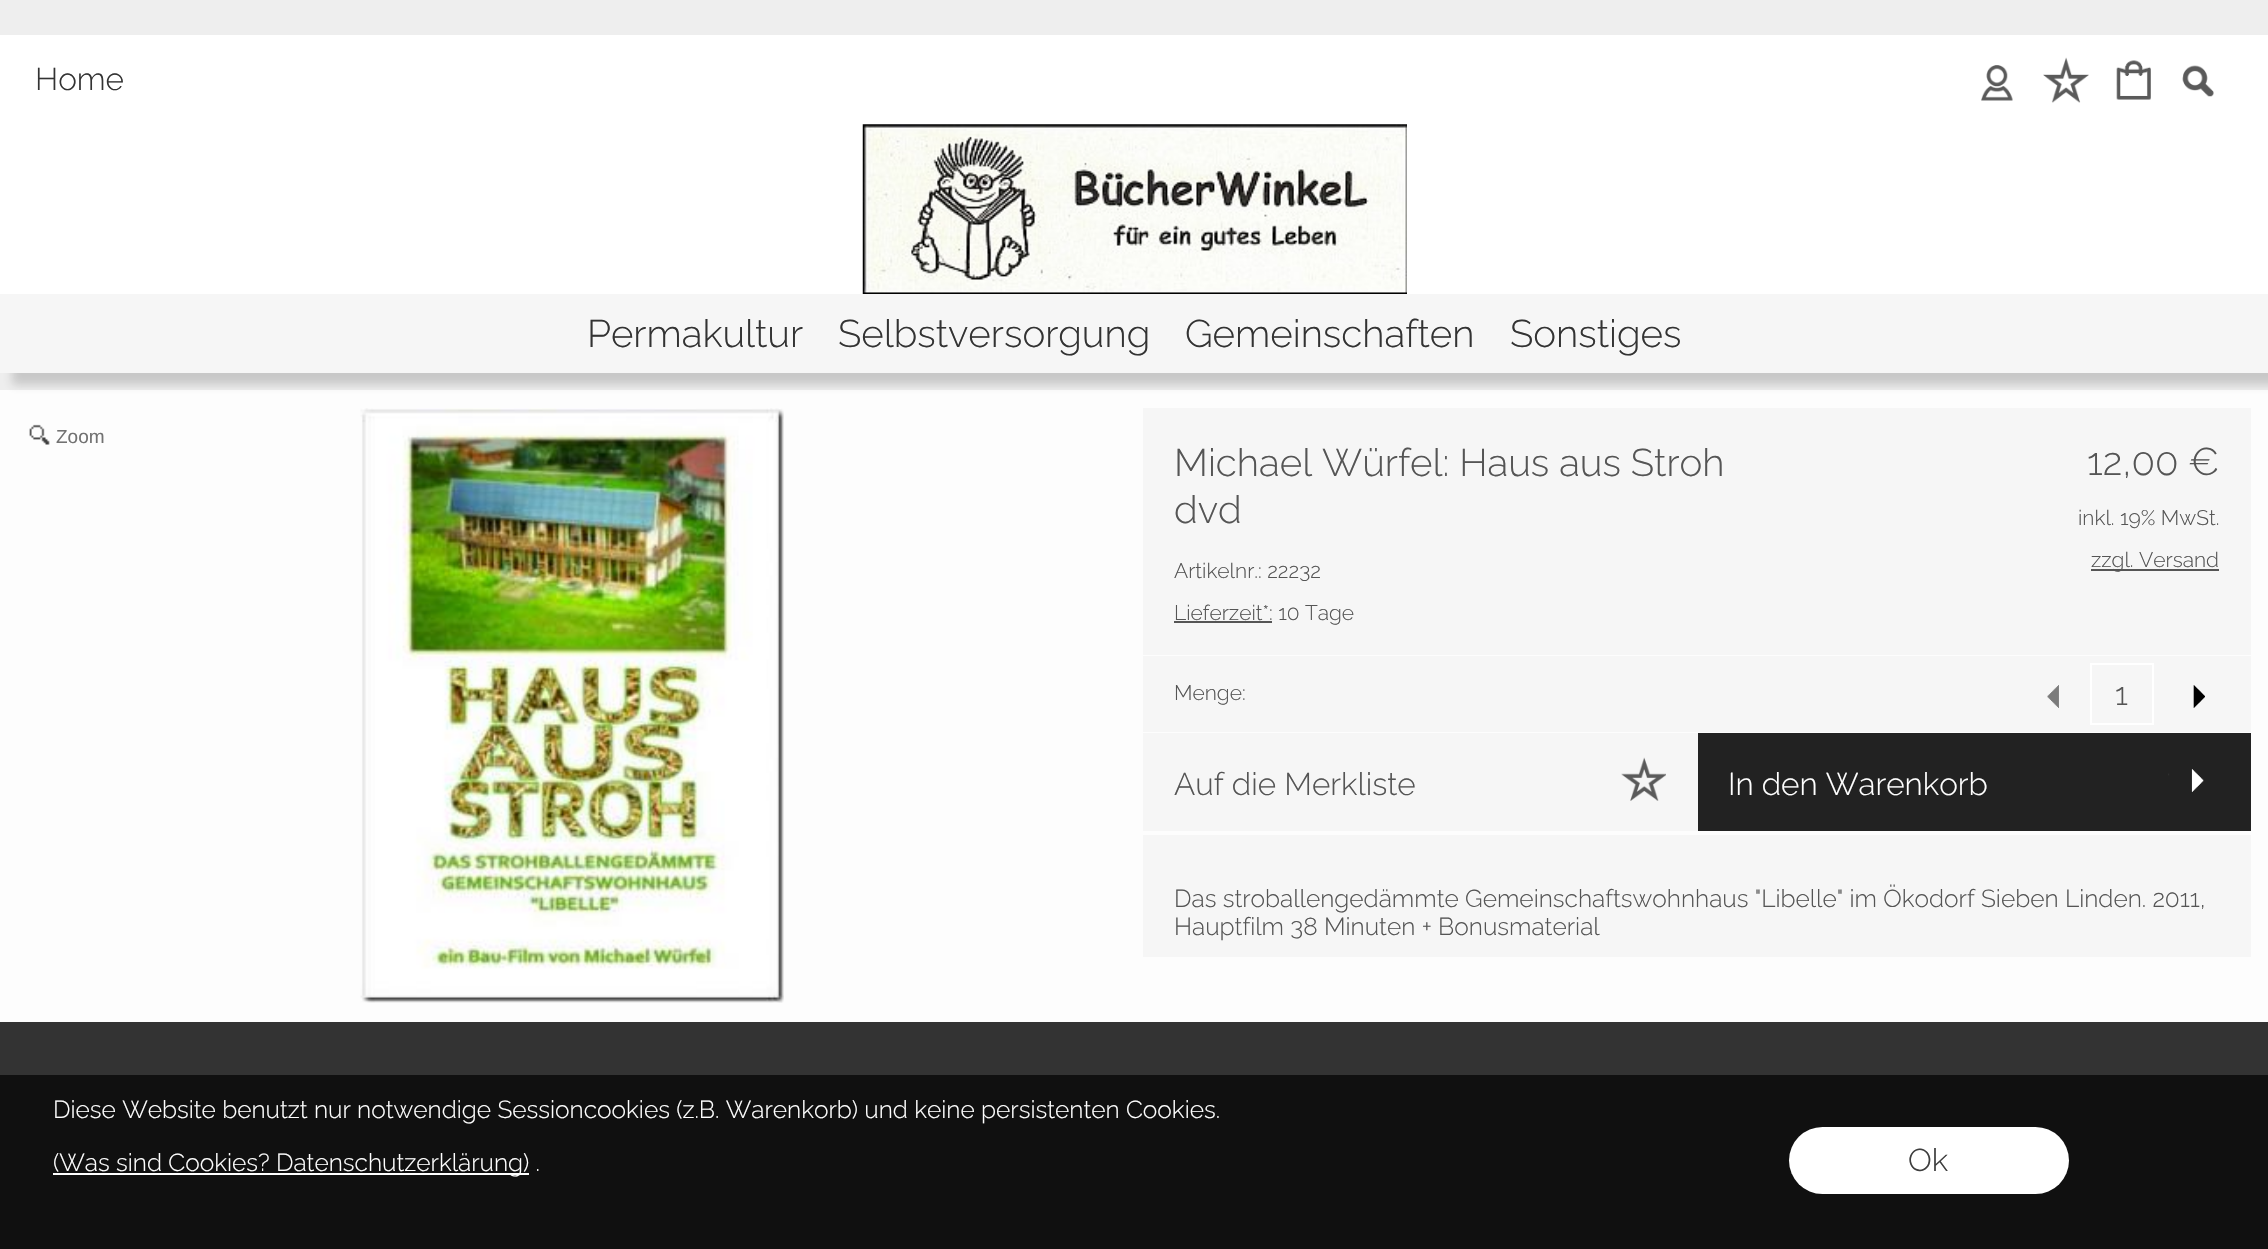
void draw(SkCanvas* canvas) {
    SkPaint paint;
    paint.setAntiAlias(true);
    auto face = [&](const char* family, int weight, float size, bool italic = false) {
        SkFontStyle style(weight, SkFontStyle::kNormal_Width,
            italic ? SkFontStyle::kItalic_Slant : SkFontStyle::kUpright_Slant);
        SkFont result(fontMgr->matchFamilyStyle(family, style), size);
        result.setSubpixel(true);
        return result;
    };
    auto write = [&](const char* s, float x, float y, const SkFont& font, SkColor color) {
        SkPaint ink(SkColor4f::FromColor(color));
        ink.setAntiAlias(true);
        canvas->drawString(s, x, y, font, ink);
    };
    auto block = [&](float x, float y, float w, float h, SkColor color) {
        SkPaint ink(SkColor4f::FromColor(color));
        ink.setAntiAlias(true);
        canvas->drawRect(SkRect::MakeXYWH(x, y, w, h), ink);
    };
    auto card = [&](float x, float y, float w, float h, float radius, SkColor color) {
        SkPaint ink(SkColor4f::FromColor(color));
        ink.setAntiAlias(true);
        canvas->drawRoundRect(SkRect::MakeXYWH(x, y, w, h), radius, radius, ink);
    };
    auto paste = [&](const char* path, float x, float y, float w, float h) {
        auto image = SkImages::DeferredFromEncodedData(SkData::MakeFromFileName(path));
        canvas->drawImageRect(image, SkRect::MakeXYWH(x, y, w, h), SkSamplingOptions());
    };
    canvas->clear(SkColorSetRGB(238, 238, 238));
    block(0, 35, 2268, 259, SK_ColorWHITE);
    paste("pic1.png", 862, 124, 545, 170);
    auto kFont1 = face("Raleway", 300, 31.5f);
    write("Home", 35, 90, kFont1, SkColorSetRGB(51, 51, 51));
    paste("pic2.png", 1981, 65, 32, 36);
    paste("pic3.png", 2043, 57, 46, 46);
    paste("pic4.png", 2116, 60, 35, 40);
    paste("pic5.png", 2182, 65, 32, 32);
    block(0, 390, 2268, 632, SkColorSetRGB(253, 253, 253));
    paint.setColor(SkColorSetARGB(51, 50, 50, 50));
    paint.setMaskFilter(SkMaskFilter::MakeBlur(kNormal_SkBlurStyle, 4.5f));
    canvas->drawRect(SkRect::MakeXYWH(12, 306, 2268, 79), paint);
    paint.setMaskFilter(nullptr);
    block(0, 294, 2268, 79, SkColorSetRGB(246, 246, 246));
    auto kFont2 = face("Raleway", 300, 38.5f);
    write("Permakultur", 587, 347, kFont2, SkColorSetRGB(51, 51, 51));
    write("Selbstversorgung", 838, 347, kFont2, SkColorSetRGB(51, 51, 51));
    write("Gemeinschaften", 1185, 347, kFont2, SkColorSetRGB(51, 51, 51));
    write("Sonstiges", 1510, 347, kFont2, SkColorSetRGB(51, 51, 51));
    paste("pic6.png", 29, 424, 21, 21);
    auto kFont3 = face("Liberation Sans", 400, 19);
    write("Zoom", 56, 443, kFont3, SkColorSetRGB(114, 114, 114));
    paste("pic7.png", 360, 408, 424, 595);
    block(1143, 408, 1108, 247, SkColorSetRGB(246, 246, 246));
    write("Michael Würfel: Haus aus Stroh", 1174, 476, kFont2, SkColorSetRGB(85, 85, 85));
    write("dvd", 1174, 523, kFont2, SkColorSetRGB(85, 85, 85));
    auto kFont4 = face("Raleway", 300, 21);
    write("Artikelnr.: 22232", 1174, 578, kFont4, SkColorSetRGB(85, 85, 85));
    block(1174, 621, 98, 2, SkColorSetRGB(85, 85, 85));
    write("Lieferzeit*: 10 Tage", 1174, 620, kFont4, SkColorSetRGB(85, 85, 85));
    write("12,00 €", 2087, 475, kFont2, SkColorSetRGB(85, 85, 85));
    write("inkl. 19% MwSt.", 2078, 525, kFont4, SkColorSetRGB(85, 85, 85));
    block(2091, 569, 128, 2, SkColorSetRGB(85, 85, 85));
    write("zzgl. Versand", 2091, 567, kFont4, SkColorSetRGB(85, 85, 85));
    block(1143, 656, 1108, 76, SkColorSetRGB(246, 246, 246));
    write("Menge:", 1174, 700, kFont4, SkColorSetRGB(85, 85, 85));
    paste("pic8.png", 2047, 685, 12, 23);
    paint.setStyle(SkPaint::kStroke_Style);
    paint.setStrokeWidth(2);
    paint.setColor(SK_ColorWHITE);
    canvas->drawRect(SkRect::MakeXYWH(2091, 664, 62, 60), paint);
    write("1", 2115, 705, kFont1, SkColorSetRGB(85, 85, 85));
    paste("pic9.png", 2193, 685, 12, 23);
    block(1143, 733, 555, 98, SkColorSetRGB(246, 246, 246));
    write("Auf die Merkliste", 1174, 795, kFont1, SkColorSetRGB(85, 85, 85));
    paste("pic10.png", 1621, 757, 45, 44);
    block(1698, 733, 553, 98, SkColorSetRGB(34, 34, 34));
    write("In den Warenkorb", 1728, 795, kFont1, SK_ColorWHITE);
    paste("pic11.png", 2168, 769, 36, 23);
    block(1143, 835, 1108, 122, SkColorSetRGB(246, 246, 246));
    auto kFont5 = face("Raleway", 300, 24.5f);
    write("Das stroballengedämmte Gemeinschaftswohnhaus \"Libelle\" im Ökodorf Sieben Linden. 2011,", 1174, 907, kFont5, SkColorSetRGB(85, 85, 85));
    write("Hauptfilm 38 Minuten + Bonusmaterial", 1174, 935, kFont5, SkColorSetRGB(85, 85, 85));
    block(0, 1022, 2268, 227, SkColorSetRGB(51, 51, 51));
    block(0, 1075, 2268, 174, SkColorSetARGB(179, 0, 0, 0));
    write("Diese Website benutzt nur notwendige Sessioncookies (z.B. Warenkorb) und keine persistenten Cookies.", 53, 1118, kFont5, SK_ColorWHITE);
    block(53, 1173, 476, 2, SK_ColorWHITE);
    write("(Was sind Cookies? Datenschutzerklärung) .", 53, 1171, kFont5, SK_ColorWHITE);
    card(1789, 1127, 280, 67, 33.5f, SK_ColorWHITE);
    write("Ok", 1908, 1171, kFont1, SkColorSetRGB(62, 62, 62));
}
